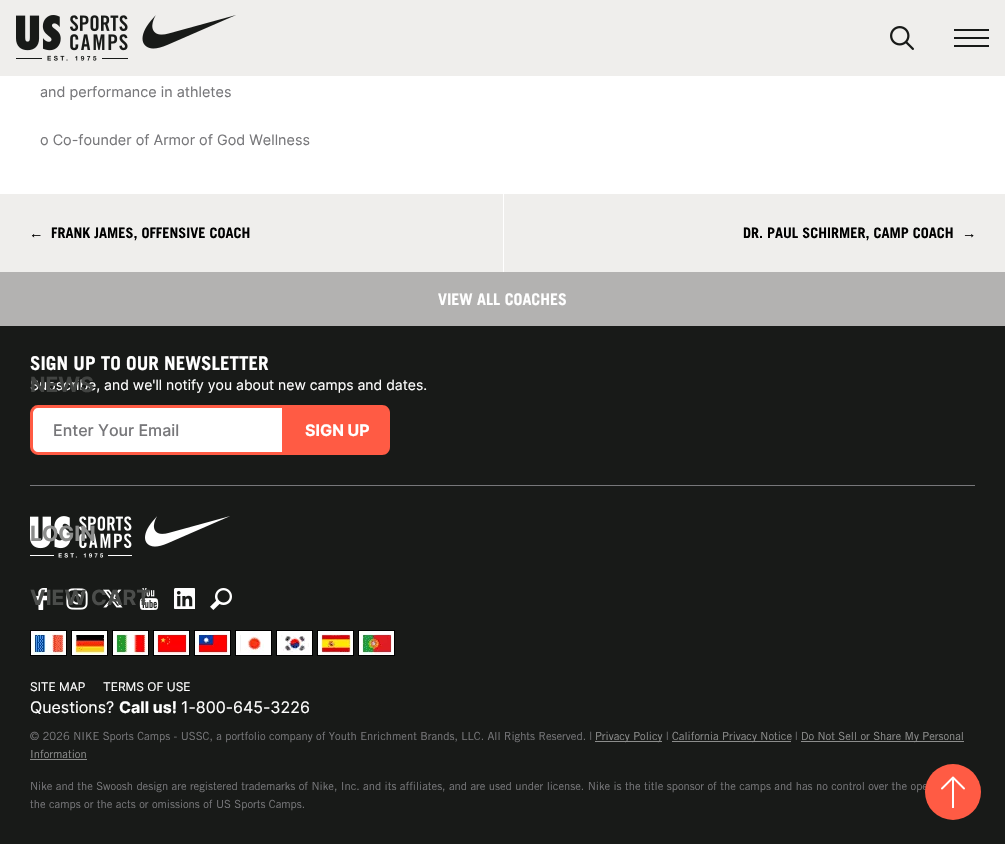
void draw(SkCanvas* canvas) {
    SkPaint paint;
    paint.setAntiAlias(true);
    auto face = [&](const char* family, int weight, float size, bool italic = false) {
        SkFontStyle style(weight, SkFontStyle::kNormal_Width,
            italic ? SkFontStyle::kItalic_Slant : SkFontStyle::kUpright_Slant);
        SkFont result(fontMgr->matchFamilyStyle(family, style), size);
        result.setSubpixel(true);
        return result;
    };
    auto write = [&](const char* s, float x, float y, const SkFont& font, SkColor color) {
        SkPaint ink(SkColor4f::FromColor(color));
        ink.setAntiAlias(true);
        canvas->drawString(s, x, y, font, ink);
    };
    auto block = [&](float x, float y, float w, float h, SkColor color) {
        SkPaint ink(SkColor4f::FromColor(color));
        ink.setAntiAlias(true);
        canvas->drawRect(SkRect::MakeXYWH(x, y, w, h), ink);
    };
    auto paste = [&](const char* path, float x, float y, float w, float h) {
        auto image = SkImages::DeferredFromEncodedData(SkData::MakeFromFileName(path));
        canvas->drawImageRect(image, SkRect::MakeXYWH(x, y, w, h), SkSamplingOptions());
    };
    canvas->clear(SK_ColorWHITE);
    auto kFont1 = face("Inter", 400, 14.4f);
    write("and performance in athletes", 40, 97, kFont1, SkColorSetRGB(119, 119, 122));
    write("o Co-founder of Armor of God Wellness", 40, 145, kFont1, SkColorSetRGB(119, 119, 122));
    block(0, 194, 503, 78, SkColorSetRGB(239, 238, 236));
    auto kFont2 = face("Liberation Sans", 400, 14.4f);
    write("←", 29, 238, kFont2, SK_ColorBLACK);
    auto kFont3 = face("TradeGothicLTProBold", 700, 14.4f);
    write("FRANK JAMES, OFFENSIVE COACH", 51, 238, kFont3, SK_ColorBLACK);
    block(504, 194, 501, 78, SkColorSetRGB(239, 238, 236));
    write("DR. PAUL SCHIRMER, CAMP COACH", 743, 238, kFont3, SK_ColorBLACK);
    write("→", 962, 238, kFont2, SK_ColorBLACK);
    block(0, 272, 1005, 54, SkColorSetRGB(179, 178, 177));
    auto kFont4 = face("TradeGothicLTProBold", 700, 16);
    write("VIEW ALL COACHES", 438, 305, kFont4, SK_ColorWHITE);
    block(0, 326, 1005, 518, SkColorSetRGB(24, 26, 24));
    auto kFont5 = face("TradeGothicLTProBold", 700, 19);
    write("SIGN UP TO OUR NEWSLETTER", 30, 370, kFont5, SK_ColorWHITE);
    auto kFont6 = face("Inter", 400, 14);
    write("Subscribe, and we'll notify you about new camps and dates.", 30, 390, kFont6, SK_ColorWHITE);
    paint.setColor(SK_ColorWHITE);
    canvas->drawPath(SkPathBuilder().moveTo(38, 406.5f).lineTo(283.5f, 406.5f).lineTo(283.5f, 453.5f).lineTo(38, 453.5f).cubicTo(34.5f, 453.5f, 31.5f, 450.5f, 31.5f, 447).lineTo(31.5f, 413).cubicTo(31.5f, 409.5f, 34.5f, 406.5f, 38, 406.5f).close().detach(), paint);
    paint.setStyle(SkPaint::kStroke_Style);
    paint.setStrokeWidth(3);
    paint.setColor(SkColorSetRGB(255, 91, 68));
    canvas->drawPath(SkPathBuilder().moveTo(38, 406.5f).lineTo(283.5f, 406.5f).lineTo(283.5f, 453.5f).lineTo(38, 453.5f).cubicTo(34.5f, 453.5f, 31.5f, 450.5f, 31.5f, 447).lineTo(31.5f, 413).cubicTo(31.5f, 409.5f, 34.5f, 406.5f, 38, 406.5f).close().detach(), paint);
    auto kFont7 = face("Inter", 500, 16);
    write("Enter Your Email", 53, 436, kFont7, SkColorSetRGB(119, 119, 122));
    paint.setStyle(SkPaint::kFill_Style);
    canvas->drawPath(SkPathBuilder().moveTo(285, 405).lineTo(382, 405).cubicTo(386.5f, 405, 390, 408.5f, 390, 413).lineTo(390, 447).cubicTo(390, 451.5f, 386.5f, 455, 382, 455).lineTo(285, 455).close().detach(), paint);
    auto kFont8 = face("Inter", 700, 16);
    write("SIGN UP", 305, 436, kFont8, SK_ColorWHITE);
    block(30, 485, 945, 1, SkColorSetRGB(119, 119, 122));
    paste("pic1.png", 30, 516, 200, 42);
    paste("pic2.png", 35, 588, 13, 22);
    paste("pic3.png", 66, 588, 22, 22);
    paste("pic4.png", 103, 589, 20, 19);
    paste("pic5.png", 139, 588, 20, 22);
    paste("pic6.png", 174, 588, 21, 21);
    paste("pic7.png", 210, 588, 22, 22);
    block(64, 631, 2, 24, SK_ColorWHITE);
    paste("pic8.png", 31, 631, 33, 24);
    paint.setStyle(SkPaint::kStroke_Style);
    paint.setStrokeWidth(1);
    paint.setColor(SK_ColorBLACK);
    canvas->drawRect(SkRect::MakeXYWH(30.5f, 630.5f, 36, 25), paint);
    block(72, 631, 35, 24, SK_ColorWHITE);
    paste("pic9.png", 75, 635, 30, 20);
    canvas->drawRect(SkRect::MakeXYWH(71.5f, 630.5f, 36, 25), paint);
    block(113, 631, 3, 24, SK_ColorWHITE);
    paste("pic10.png", 116, 631, 32, 24);
    canvas->drawRect(SkRect::MakeXYWH(112.5f, 630.5f, 36, 25), paint);
    block(154, 631, 35, 24, SK_ColorWHITE);
    paste("pic11.png", 154, 632, 33, 22);
    canvas->drawRect(SkRect::MakeXYWH(153.5f, 630.5f, 36, 25), paint);
    block(195, 631, 35, 24, SK_ColorWHITE);
    paste("pic12.png", 195, 631, 33, 23);
    canvas->drawRect(SkRect::MakeXYWH(194.5f, 630.5f, 36, 25), paint);
    block(236, 631, 35, 24, SK_ColorWHITE);
    paste("pic13.png", 240, 631, 24, 22);
    canvas->drawRect(SkRect::MakeXYWH(235.5f, 630.5f, 36, 25), paint);
    block(277, 631, 35, 24, SK_ColorWHITE);
    paste("pic14.png", 281, 635, 28, 19);
    canvas->drawRect(SkRect::MakeXYWH(276.5f, 630.5f, 36, 25), paint);
    block(351, 631, 2, 24, SK_ColorWHITE);
    paste("pic15.png", 318, 631, 33, 24);
    canvas->drawRect(SkRect::MakeXYWH(317.5f, 630.5f, 36, 25), paint);
    block(392, 631, 2, 24, SK_ColorWHITE);
    paste("pic16.png", 359, 631, 33, 24);
    canvas->drawRect(SkRect::MakeXYWH(358.5f, 630.5f, 36, 25), paint);
    auto kFont9 = face("Inter", 400, 12);
    write("SITE MAP", 30, 691, kFont9, SK_ColorWHITE);
    write("TERMS OF USE", 103, 691, kFont9, SK_ColorWHITE);
    auto kFont10 = face("Inter", 400, 16);
    write("Questions?", 30, 713, kFont10, SK_ColorWHITE);
    write("Call us!", 119, 713, kFont8, SK_ColorWHITE);
    write("1-800-645-3226", 181, 713, kFont10, SK_ColorWHITE);
    auto kFont11 = face("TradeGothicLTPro", 400, 11.2f);
    write("© 2026 NIKE Sports Camps - USSC, a portfolio company of Youth Enrichment Brands, LLC. All Rights Reserved. |", 30, 740, kFont11, SkColorSetRGB(119, 119, 122));
    block(595, 741, 67, 1, SkColorSetRGB(140, 141, 140));
    write("Privacy Policy", 595, 740, kFont11, SkColorSetRGB(140, 141, 140));
    write("|", 666, 740, kFont11, SkColorSetRGB(119, 119, 122));
    block(672, 741, 119, 1, SkColorSetRGB(140, 141, 140));
    write("California Privacy Notice", 672, 740, kFont11, SkColorSetRGB(140, 141, 140));
    write("|", 795, 740, kFont11, SkColorSetRGB(119, 119, 122));
    block(801, 741, 163, 1, SkColorSetRGB(140, 141, 140));
    write("Do Not Sell or Share My Personal", 801, 740, kFont11, SkColorSetRGB(140, 141, 140));
    write("Information", 30, 758, kFont11, SkColorSetRGB(140, 141, 140));
    block(30, 759, 57, 1, SkColorSetRGB(140, 141, 140));
    write("Nike and the Swoosh design are registered trademarks of Nike, Inc. and its affiliates, and are used under license. Nike is the title sponsor of the camps and has no control over the ope", 30, 790, kFont11, SkColorSetRGB(119, 119, 122));
    write("the camps or the acts or omissions of US Sports Camps.", 30, 808, kFont11, SkColorSetRGB(119, 119, 122));
    block(0, 0, 1005, 76, SkColorSetRGB(239, 238, 236));
    paste("pic17.png", 16, 15, 220, 46);
    paste("pic18.png", 890, 26, 24, 24);
    block(954, 29, 35, 2, SkColorSetRGB(24, 26, 24));
    block(954, 37, 35, 2, SkColorSetRGB(24, 26, 24));
    block(954, 45, 35, 2, SkColorSetRGB(24, 26, 24));
    auto kFont12 = face("Inter", 700, 21);
    write("NEWS", 30, 392, kFont12, SkColorSetRGB(66, 68, 66));
    write("LOGIN", 30, 541, kFont12, SkColorSetRGB(140, 141, 140));
    write("VIEW CART", 30, 605, kFont12, SkColorSetRGB(75, 77, 75));
    paint.setStyle(SkPaint::kFill_Style);
    paint.setColor(SkColorSetRGB(255, 91, 68));
    canvas->drawCircle(953, 792, 28, paint);
    paste("pic19.png", 941, 776, 24, 32);
}
